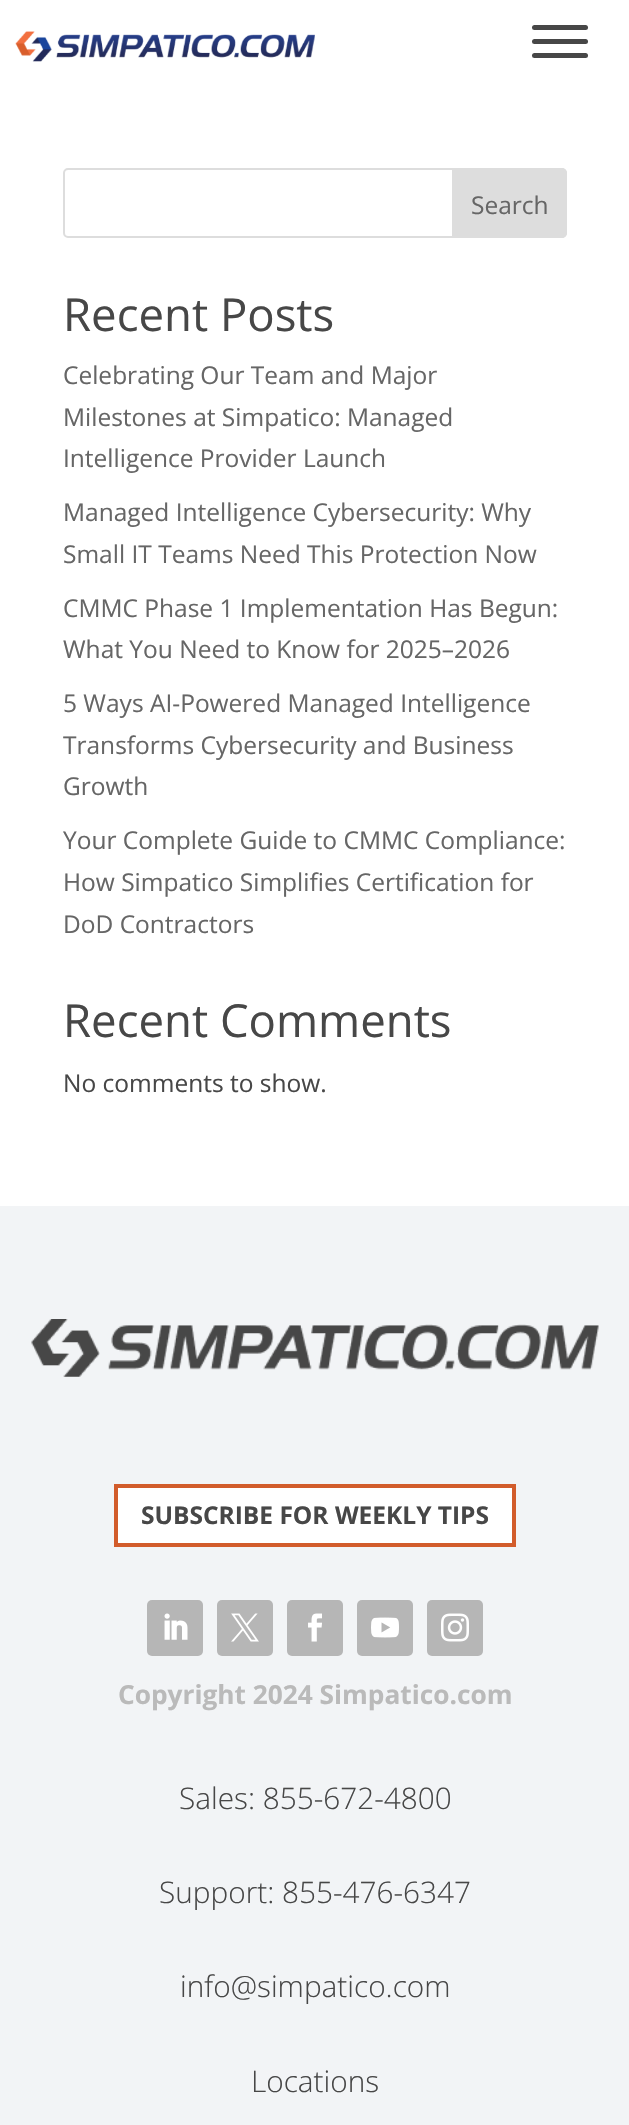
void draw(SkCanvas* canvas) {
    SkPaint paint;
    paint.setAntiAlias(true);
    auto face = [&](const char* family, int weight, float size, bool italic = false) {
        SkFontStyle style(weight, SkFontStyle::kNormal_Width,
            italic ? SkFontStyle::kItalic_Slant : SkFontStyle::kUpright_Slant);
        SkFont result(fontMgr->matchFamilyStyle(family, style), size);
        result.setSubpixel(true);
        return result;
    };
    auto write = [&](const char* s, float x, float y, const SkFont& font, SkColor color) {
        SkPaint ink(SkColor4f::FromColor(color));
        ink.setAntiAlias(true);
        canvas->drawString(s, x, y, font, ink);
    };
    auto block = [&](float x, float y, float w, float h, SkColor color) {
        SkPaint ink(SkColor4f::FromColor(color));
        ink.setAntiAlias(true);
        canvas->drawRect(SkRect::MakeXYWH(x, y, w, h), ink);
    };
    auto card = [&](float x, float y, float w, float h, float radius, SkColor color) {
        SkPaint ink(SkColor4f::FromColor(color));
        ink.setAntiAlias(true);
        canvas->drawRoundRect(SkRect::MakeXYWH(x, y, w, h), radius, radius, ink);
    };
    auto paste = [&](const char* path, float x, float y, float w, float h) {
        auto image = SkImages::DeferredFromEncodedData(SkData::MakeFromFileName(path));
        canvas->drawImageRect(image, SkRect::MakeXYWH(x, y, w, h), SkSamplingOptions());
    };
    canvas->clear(SK_ColorWHITE);
    paste("pic1.png", 15, 31, 300, 31);
    card(532, 25, 56, 5, 2.5f, SkColorSetRGB(71, 71, 71));
    card(532, 39, 56, 5, 2.5f, SkColorSetRGB(71, 71, 71));
    card(532, 53, 56, 5, 2.5f, SkColorSetRGB(71, 71, 71));
    paint.setStyle(SkPaint::kStroke_Style);
    paint.setStrokeWidth(2);
    paint.setColor(SkColorSetRGB(221, 221, 221));
    canvas->drawRoundRect(SkRect::MakeXYWH(64, 169, 502, 68), 4, 4, paint);
    paint.setStyle(SkPaint::kFill_Style);
    canvas->drawPath(SkPathBuilder().moveTo(453, 169).lineTo(562, 169).cubicTo(564, 169, 566, 171, 566, 173).lineTo(566, 233).cubicTo(566, 235, 564, 237, 562, 237).lineTo(453, 237).close().detach(), paint);
    paint.setStyle(SkPaint::kStroke_Style);
    canvas->drawPath(SkPathBuilder().moveTo(453, 169).lineTo(562, 169).cubicTo(564, 169, 566, 171, 566, 173).lineTo(566, 233).cubicTo(566, 235, 564, 237, 562, 237).lineTo(453, 237).close().detach(), paint);
    auto kFont1 = face("Open Sans", 400, 24.5f);
    write("Search", 471, 214, kFont1, SkColorSetRGB(102, 102, 102));
    auto kFont2 = face("Open Sans", 400, 45.5f);
    write("Recent Posts", 63, 331, kFont2, SkColorSetRGB(71, 71, 71));
    write("Celebrating Our Team and Major", 63, 384, kFont1, SkColorSetRGB(102, 102, 102));
    write("Milestones at Simpatico: Managed", 63, 426, kFont1, SkColorSetRGB(102, 102, 102));
    write("Intelligence Provider Launch", 63, 467, kFont1, SkColorSetRGB(102, 102, 102));
    write("Managed Intelligence Cybersecurity: Why", 63, 521, kFont1, SkColorSetRGB(102, 102, 102));
    write("Small IT Teams Need This Protection Now", 63, 563, kFont1, SkColorSetRGB(102, 102, 102));
    write("CMMC Phase 1 Implementation Has Begun:", 63, 617, kFont1, SkColorSetRGB(102, 102, 102));
    write("What You Need to Know for 2025–2026", 63, 658, kFont1, SkColorSetRGB(102, 102, 102));
    write("5 Ways AI-Powered Managed Intelligence", 63, 712, kFont1, SkColorSetRGB(102, 102, 102));
    write("Transforms Cybersecurity and Business", 63, 754, kFont1, SkColorSetRGB(102, 102, 102));
    write("Growth", 63, 795, kFont1, SkColorSetRGB(102, 102, 102));
    write("Your Complete Guide to CMMC Compliance:", 63, 849, kFont1, SkColorSetRGB(102, 102, 102));
    write("How Simpatico Simplifies Certification for", 63, 891, kFont1, SkColorSetRGB(102, 102, 102));
    write("DoD Contractors", 63, 933, kFont1, SkColorSetRGB(102, 102, 102));
    write("Recent Comments", 63, 1037, kFont2, SkColorSetRGB(71, 71, 71));
    write("No comments to show.", 63, 1092, kFont1, SkColorSetRGB(71, 71, 71));
    block(0, 1206, 629, 919, SkColorSetRGB(242, 244, 246));
    paste("pic2.png", 31, 1319, 568, 58);
    paint.setStyle(SkPaint::kFill_Style);
    paint.setColor(SK_ColorWHITE);
    canvas->drawRect(SkRect::MakeXYWH(116, 1486, 398, 59), paint);
    paint.setStyle(SkPaint::kStroke_Style);
    paint.setStrokeWidth(4);
    paint.setColor(SkColorSetRGB(210, 92, 43));
    canvas->drawRect(SkRect::MakeXYWH(116, 1486, 398, 59), paint);
    auto kFont3 = face("Open Sans", 700, 24.5f);
    write("SUBSCRIBE FOR WEEKLY TIPS", 141, 1524, kFont3, SkColorSetRGB(71, 71, 71));
    card(147, 1600, 56, 56, 5, SkColorSetRGB(182, 182, 182));
    paste("pic3.png", 164, 1613, 24, 27);
    card(217, 1600, 56, 56, 5, SkColorSetRGB(182, 182, 182));
    paste("pic4.png", 231, 1613, 28, 29);
    card(287, 1600, 56, 56, 5, SkColorSetRGB(182, 182, 182));
    paste("pic5.png", 308, 1613, 14, 29);
    card(357, 1600, 56, 56, 5, SkColorSetRGB(182, 182, 182));
    paste("pic6.png", 371, 1617, 28, 21);
    card(427, 1600, 56, 56, 5, SkColorSetRGB(182, 182, 182));
    paste("pic7.png", 441, 1613, 28, 29);
    auto kFont4 = face("Open Sans", 700, 26.25f);
    write("Copyright 2024 Simpatico.com", 118, 1704, kFont4, SkColorSetRGB(186, 186, 186));
    auto kFont5 = face("Open Sans", 300, 29.75f);
    write("Sales: 855-672-4800", 179, 1809, kFont5, SkColorSetRGB(71, 71, 71));
    write("Support: 855-476-6347", 159, 1903, kFont5, SkColorSetRGB(71, 71, 71));
    write("info@simpatico.com", 180, 1997, kFont5, SkColorSetRGB(71, 71, 71));
    write("Locations", 251, 2092, kFont5, SkColorSetRGB(71, 71, 71));
}
